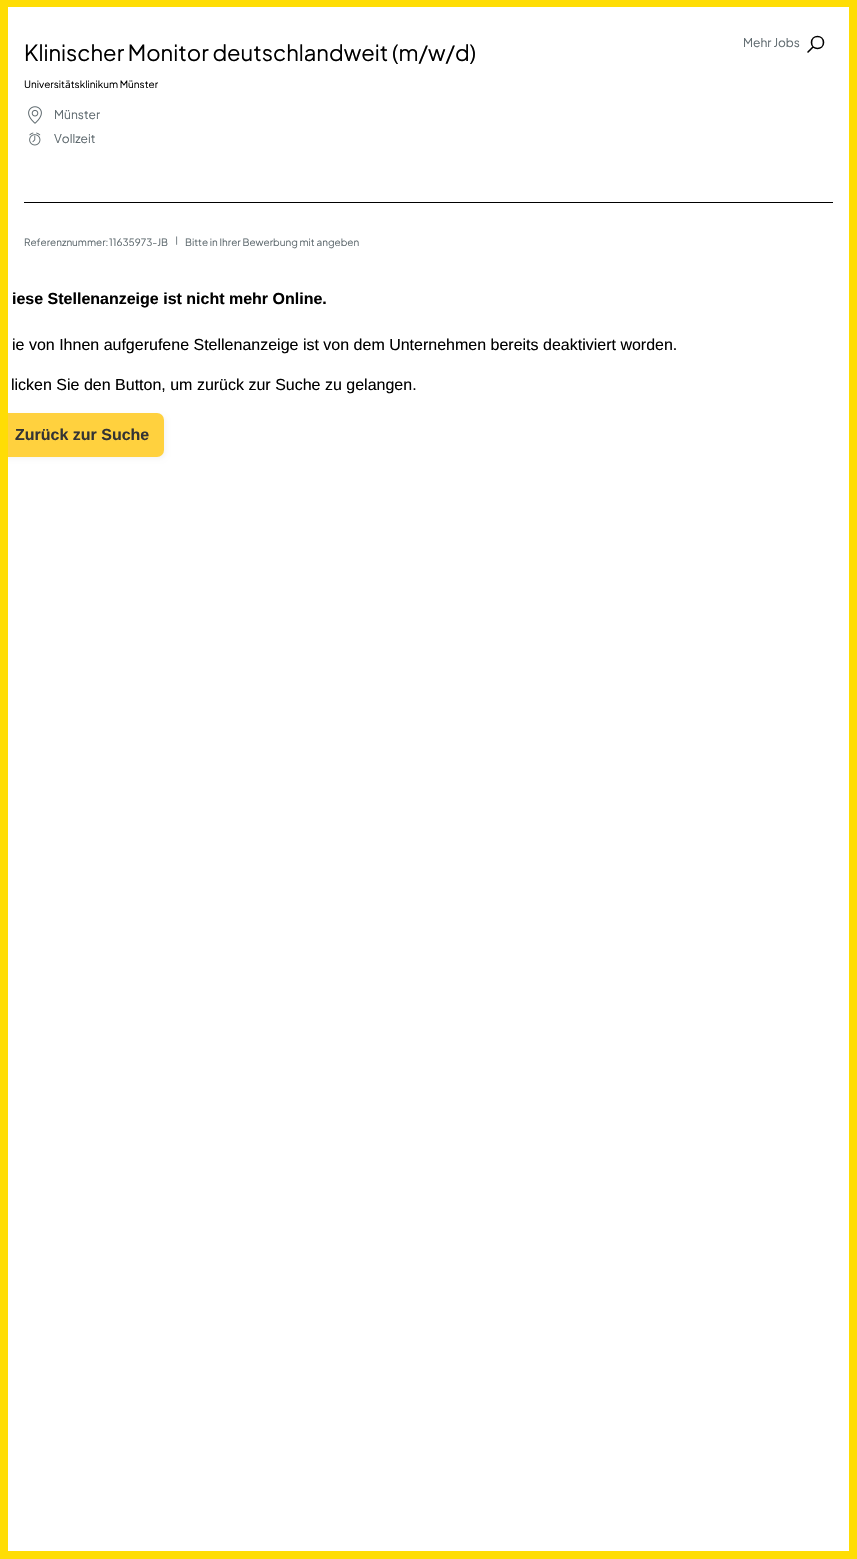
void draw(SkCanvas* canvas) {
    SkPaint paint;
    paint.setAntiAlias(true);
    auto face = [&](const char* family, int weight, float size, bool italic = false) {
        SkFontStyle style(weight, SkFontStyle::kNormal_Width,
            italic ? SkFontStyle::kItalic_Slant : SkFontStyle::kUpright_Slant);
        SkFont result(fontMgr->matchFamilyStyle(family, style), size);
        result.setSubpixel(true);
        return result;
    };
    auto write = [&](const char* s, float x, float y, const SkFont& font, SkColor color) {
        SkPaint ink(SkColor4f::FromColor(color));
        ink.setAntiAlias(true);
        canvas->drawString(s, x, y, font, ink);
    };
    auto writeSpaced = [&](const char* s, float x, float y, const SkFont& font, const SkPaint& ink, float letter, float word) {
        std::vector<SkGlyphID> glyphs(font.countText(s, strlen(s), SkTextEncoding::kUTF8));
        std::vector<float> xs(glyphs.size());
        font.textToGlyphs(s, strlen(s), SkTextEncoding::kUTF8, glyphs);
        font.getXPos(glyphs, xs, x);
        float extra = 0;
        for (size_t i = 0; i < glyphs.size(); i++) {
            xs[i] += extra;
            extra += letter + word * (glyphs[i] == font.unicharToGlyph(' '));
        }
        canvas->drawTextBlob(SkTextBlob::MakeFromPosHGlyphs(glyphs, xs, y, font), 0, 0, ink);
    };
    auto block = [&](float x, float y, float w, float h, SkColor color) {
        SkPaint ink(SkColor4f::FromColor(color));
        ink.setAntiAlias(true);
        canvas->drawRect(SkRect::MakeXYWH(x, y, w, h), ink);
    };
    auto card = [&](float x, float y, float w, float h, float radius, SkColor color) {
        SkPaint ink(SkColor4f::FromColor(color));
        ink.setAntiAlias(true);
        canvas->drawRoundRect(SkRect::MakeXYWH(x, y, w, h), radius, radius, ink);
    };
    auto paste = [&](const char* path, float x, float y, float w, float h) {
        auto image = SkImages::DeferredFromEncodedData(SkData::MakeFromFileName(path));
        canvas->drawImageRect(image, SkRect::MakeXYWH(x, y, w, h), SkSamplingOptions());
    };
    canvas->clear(SK_ColorWHITE);
    paint.setStyle(SkPaint::kStroke_Style);
    paint.setStrokeWidth(1.6f);
    paint.setStrokeCap(SkPaint::kRound_Cap);
    paint.setStrokeJoin(SkPaint::kRound_Join);
    paint.setColor(SK_ColorBLACK);
    canvas->drawPath(SkPathBuilder().moveTo(808, 52).lineTo(813, 47).moveTo(823.5f, 42.5f).cubicTo(823.5f, 50.5f, 811.5f, 50.5f, 811.5f, 42.5f).cubicTo(811.5f, 34.5f, 823.5f, 34.5f, 823.5f, 42.5f).close().detach(), paint);
    paste("pic1.png", 28, 106, 14, 18);
    paste("pic2.png", 29, 132, 12, 14);
    block(24, 202, 809, 1, SK_ColorBLACK);
    paint.setStyle(SkPaint::kFill_Style);
    paint.setColor(SkColorSetARGB(10, 0, 0, 0));
    paint.setMaskFilter(SkMaskFilter::MakeBlur(kNormal_SkBlurStyle, 2));
    canvas->drawRoundRect(SkRect::MakeXYWH(2, 415, 164, 44), 7, 7, paint);
    paint.setMaskFilter(nullptr);
    card(0, 413, 164, 44, 7, SkColorSetRGB(255, 209, 62));
    paint.setStyle(SkPaint::kStroke_Style);
    paint.setStrokeWidth(8);
    paint.setStrokeCap(SkPaint::kButt_Cap);
    paint.setStrokeJoin(SkPaint::kMiter_Join);
    paint.setColor(SkColorSetRGB(255, 221, 4));
    canvas->drawRect(SkRect::MakeXYWH(4, 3, 849, 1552), paint);
    auto kFont1 = face("Plus Jakarta Sans", 400, 12);
    write("Mehr Jobs", 743, 47, kFont1, SkColorSetRGB(95, 106, 111));
    auto kFont2 = face("Plus Jakarta Sans", 400, 22);
    write("Klinischer Monitor deutschlandweit (m/w/d)", 24, 61, kFont2, SK_ColorBLACK);
    auto kFont3 = face("Plus Jakarta Sans", 400, 10);
    write("Universitätsklinikum Münster", 24, 88, kFont3, SK_ColorBLACK);
    write("Münster", 54, 119, kFont1, SkColorSetRGB(95, 106, 111));
    write("Vollzeit", 54, 143, kFont1, SkColorSetRGB(95, 106, 111));
    paint.setStyle(SkPaint::kFill_Style);
    paint.setColor(SkColorSetRGB(95, 106, 111));
    writeSpaced("Referenznummer: 11635973-JB", 24, 246, kFont3, paint, 0, -1);
    auto kFont4 = face("Liberation Mono", 400, 9);
    write("|", 174, 243, kFont4, SkColorSetRGB(95, 106, 111));
    write("Bitte in Ihrer Bewerbung mit angeben", 185, 246, kFont3, SkColorSetRGB(95, 106, 111));
    auto kFont5 = face("Liberation Sans", 700, 16);
    write("iese Stellenanzeige ist nicht mehr Online.", 12, 304, kFont5, SK_ColorBLACK);
    auto kFont6 = face("Liberation Sans", 400, 16);
    write("ie von Ihnen aufgerufene Stellenanzeige ist von dem Unternehmen bereits deaktiviert worden.", 12, 350, kFont6, SK_ColorBLACK);
    write("licken Sie den Button, um zurück zur Suche zu gelangen.", 11, 390, kFont6, SK_ColorBLACK);
    write("Zurück zur Suche", 15, 440, kFont5, SkColorSetRGB(52, 52, 52));
}
